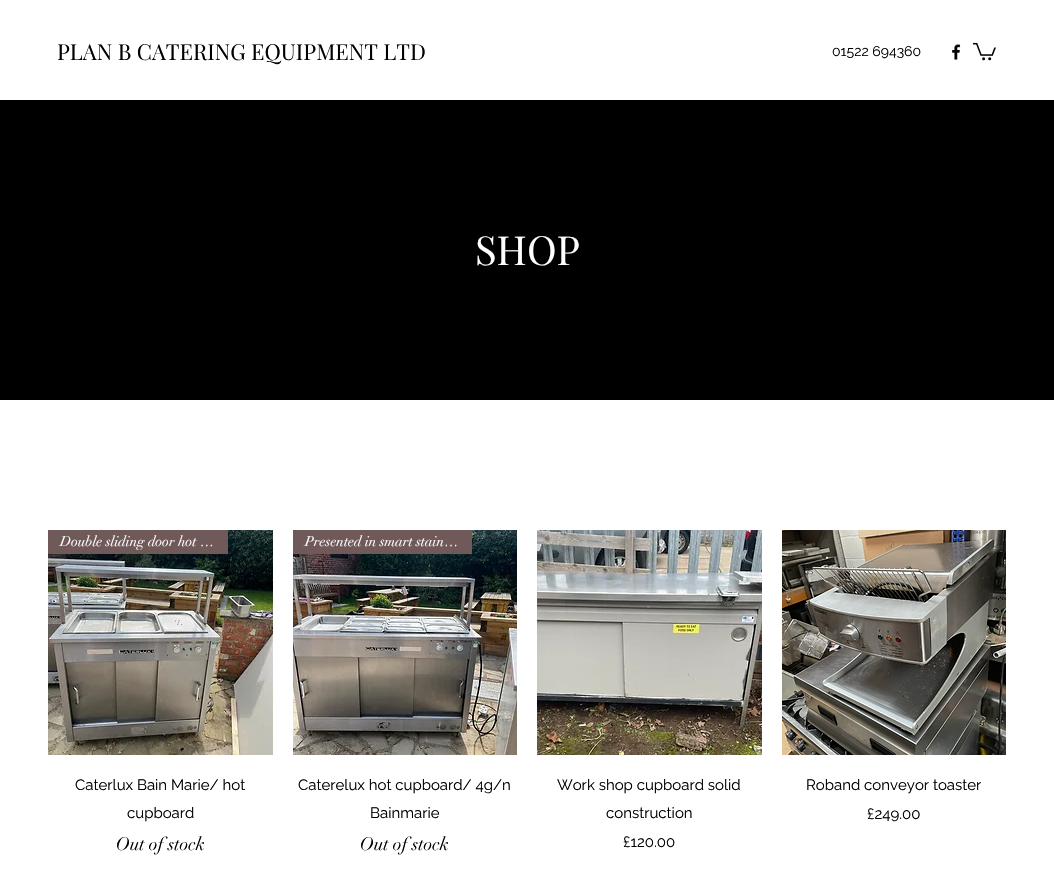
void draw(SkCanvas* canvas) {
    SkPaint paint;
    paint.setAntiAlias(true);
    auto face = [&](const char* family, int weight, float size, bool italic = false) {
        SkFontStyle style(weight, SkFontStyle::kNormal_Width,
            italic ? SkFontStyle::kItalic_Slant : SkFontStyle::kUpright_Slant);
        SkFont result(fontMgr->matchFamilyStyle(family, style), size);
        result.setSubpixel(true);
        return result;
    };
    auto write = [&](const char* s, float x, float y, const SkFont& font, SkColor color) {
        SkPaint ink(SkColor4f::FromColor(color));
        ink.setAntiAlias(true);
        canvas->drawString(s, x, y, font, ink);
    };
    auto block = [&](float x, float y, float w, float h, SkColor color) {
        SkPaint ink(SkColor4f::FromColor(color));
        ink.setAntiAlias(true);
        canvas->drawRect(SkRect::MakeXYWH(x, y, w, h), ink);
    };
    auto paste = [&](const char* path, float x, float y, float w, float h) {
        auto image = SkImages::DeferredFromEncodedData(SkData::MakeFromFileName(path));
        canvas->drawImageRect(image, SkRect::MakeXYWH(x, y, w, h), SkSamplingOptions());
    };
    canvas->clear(SK_ColorWHITE);
    auto kFont1 = face("Playfair Display", 400, 22);
    write("PLAN B CATERING EQUIPMENT LTD", 57, 60, kFont1, SK_ColorBLACK);
    auto kFont2 = face("Raleway", 400, 14);
    write("01522 694360", 832, 56, kFont2, SK_ColorBLACK);
    paste("pic1.png", 952, 44, 9, 16);
    paste("pic2.png", 973, 42, 23, 19);
    block(0, 100, 1054, 300, SK_ColorBLACK);
    auto kFont3 = face("Playfair Display", 400, 40);
    write("SHOP", 475, 265, kFont3, SK_ColorWHITE);
    paste("pic3.png", 48, 530, 225, 225);
    block(48, 530, 180, 24, SkColorSetRGB(112, 89, 89));
    auto kFont4 = face("didot", 400, 14);
    write("Double sliding door hot …", 60, 546, kFont4, SK_ColorWHITE);
    auto kFont5 = face("Raleway", 400, 15);
    write("Caterlux Bain Marie/ hot", 75, 790, kFont5, SK_ColorBLACK);
    write("cupboard", 127, 818, kFont5, SK_ColorBLACK);
    auto kFont6 = face("didot", 400, 18);
    write("Out of stock", 116, 850, kFont6, SK_ColorBLACK);
    paste("pic4.png", 293, 530, 224, 225);
    block(293, 530, 179, 24, SkColorSetRGB(112, 89, 89));
    write("Presented in smart stain…", 305, 546, kFont4, SK_ColorWHITE);
    write("Caterelux hot cupboard/ 4g/n", 298, 790, kFont5, SK_ColorBLACK);
    write("Bainmarie", 370, 818, kFont5, SK_ColorBLACK);
    write("Out of stock", 360, 850, kFont6, SK_ColorBLACK);
    paste("pic5.png", 537, 530, 225, 225);
    write("Work shop cupboard solid", 557, 790, kFont5, SK_ColorBLACK);
    write("construction", 606, 818, kFont5, SK_ColorBLACK);
    write("£120.00", 623, 847, kFont5, SK_ColorBLACK);
    paste("pic6.png", 782, 530, 224, 225);
    write("Roband conveyor toaster", 806, 790, kFont5, SK_ColorBLACK);
    write("£249.00", 867, 819, kFont5, SK_ColorBLACK);
}
